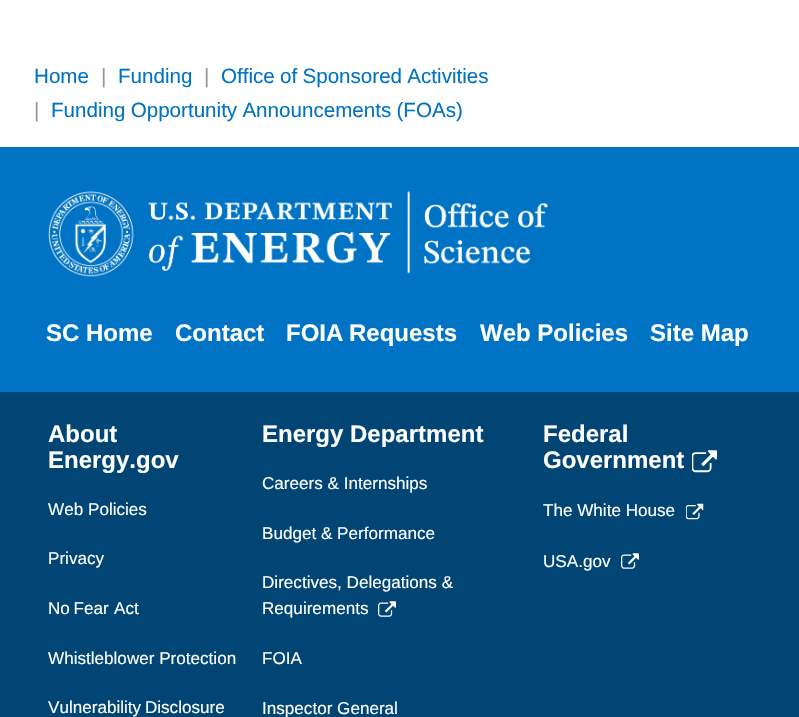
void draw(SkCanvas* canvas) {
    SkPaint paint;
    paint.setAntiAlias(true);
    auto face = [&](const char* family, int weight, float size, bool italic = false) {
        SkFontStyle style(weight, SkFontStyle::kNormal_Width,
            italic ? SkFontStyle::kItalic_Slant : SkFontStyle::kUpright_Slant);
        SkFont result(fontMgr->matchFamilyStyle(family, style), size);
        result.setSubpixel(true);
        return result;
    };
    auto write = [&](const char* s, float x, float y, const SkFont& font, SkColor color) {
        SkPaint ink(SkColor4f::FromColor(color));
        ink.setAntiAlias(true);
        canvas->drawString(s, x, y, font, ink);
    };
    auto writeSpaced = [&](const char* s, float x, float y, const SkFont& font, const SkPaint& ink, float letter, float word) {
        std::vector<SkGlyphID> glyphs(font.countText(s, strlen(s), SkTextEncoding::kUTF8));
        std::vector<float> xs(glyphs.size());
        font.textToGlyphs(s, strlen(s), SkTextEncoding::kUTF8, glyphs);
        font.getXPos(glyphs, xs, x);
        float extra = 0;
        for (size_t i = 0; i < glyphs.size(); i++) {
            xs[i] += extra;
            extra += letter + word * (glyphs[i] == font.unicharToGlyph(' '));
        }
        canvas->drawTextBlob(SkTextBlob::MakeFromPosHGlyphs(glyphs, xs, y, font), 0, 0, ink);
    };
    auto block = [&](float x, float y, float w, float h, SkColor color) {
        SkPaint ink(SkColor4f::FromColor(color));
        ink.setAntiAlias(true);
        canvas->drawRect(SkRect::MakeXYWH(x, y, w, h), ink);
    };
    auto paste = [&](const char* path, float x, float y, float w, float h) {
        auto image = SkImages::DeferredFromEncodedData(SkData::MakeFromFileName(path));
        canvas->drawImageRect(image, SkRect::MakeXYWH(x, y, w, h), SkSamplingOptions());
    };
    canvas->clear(SK_ColorWHITE);
    auto kFont1 = face("Liberation Sans", 400, 20.6f);
    write("Home", 34, 83, kFont1, SkColorSetRGB(0, 115, 196));
    write("|", 101, 83, kFont1, SkColorSetRGB(153, 153, 153));
    write("Funding", 118, 83, kFont1, SkColorSetRGB(0, 115, 196));
    write("|", 204, 83, kFont1, SkColorSetRGB(153, 153, 153));
    paint.setColor(SkColorSetRGB(0, 115, 196));
    writeSpaced("Office of Sponsored Activities", 221, 83, kFont1, paint, 0, -0.5f);
    write("|", 34, 117, kFont1, SkColorSetRGB(153, 153, 153));
    writeSpaced("Funding Opportunity Announcements (FOAs)", 51, 117, kFont1, paint, 0, -0.5f);
    block(0, 147, 799, 245, SkColorSetRGB(0, 115, 196));
    paste("pic1.png", 48, 191, 500, 86);
    auto kFont2 = face("Liberation Sans", 700, 24);
    write("SC Home", 46, 341, kFont2, SK_ColorWHITE);
    write("Contact", 175, 341, kFont2, SK_ColorWHITE);
    paint.setColor(SK_ColorWHITE);
    writeSpaced("FOIA Requests", 286, 341, kFont2, paint, 0, -1);
    write("Web Policies", 480, 341, kFont2, SK_ColorWHITE);
    write("Site Map", 650, 341, kFont2, SK_ColorWHITE);
    block(0, 392, 799, 325, SkColorSetRGB(0, 69, 116));
    write("About", 48, 442, kFont2, SK_ColorWHITE);
    write("Energy.gov", 48, 468, kFont2, SK_ColorWHITE);
    auto kFont3 = face("Liberation Sans", 400, 17.1f);
    write("Web", 48, 515, kFont3, SK_ColorWHITE);
    write("Policies", 88, 515, kFont3, SK_ColorWHITE);
    write("Privacy", 48, 564, kFont3, SK_ColorWHITE);
    writeSpaced("No Fear", 48, 614, kFont3, paint, 0, -1);
    write("Act", 114, 614, kFont3, SK_ColorWHITE);
    write("Whistleblower Protection", 48, 664, kFont3, SK_ColorWHITE);
    writeSpaced("Vulnerability Disclosure", 48, 713, kFont3, paint, 0, -1);
    write("Energy Department", 262, 442, kFont2, SK_ColorWHITE);
    write("Careers & Internships", 262, 489, kFont3, SK_ColorWHITE);
    write("Budget & Performance", 262, 539, kFont3, SK_ColorWHITE);
    write("Directives, Delegations &", 262, 588, kFont3, SK_ColorWHITE);
    write("Requirements", 262, 614, kFont3, SK_ColorWHITE);
    paste("pic2.png", 378, 601, 18, 16);
    write("FOIA", 262, 664, kFont3, SK_ColorWHITE);
    write("Inspector General", 262, 714, kFont3, SK_ColorWHITE);
    write("Federal", 543, 442, kFont2, SK_ColorWHITE);
    write("Government", 543, 468, kFont2, SK_ColorWHITE);
    paste("pic3.png", 692, 450, 25, 23);
    write("The White House", 543, 516, kFont3, SK_ColorWHITE);
    paste("pic4.png", 686, 503, 18, 17);
    write("USA.gov", 543, 567, kFont3, SK_ColorWHITE);
    paste("pic5.png", 621, 553, 18, 16);
}
